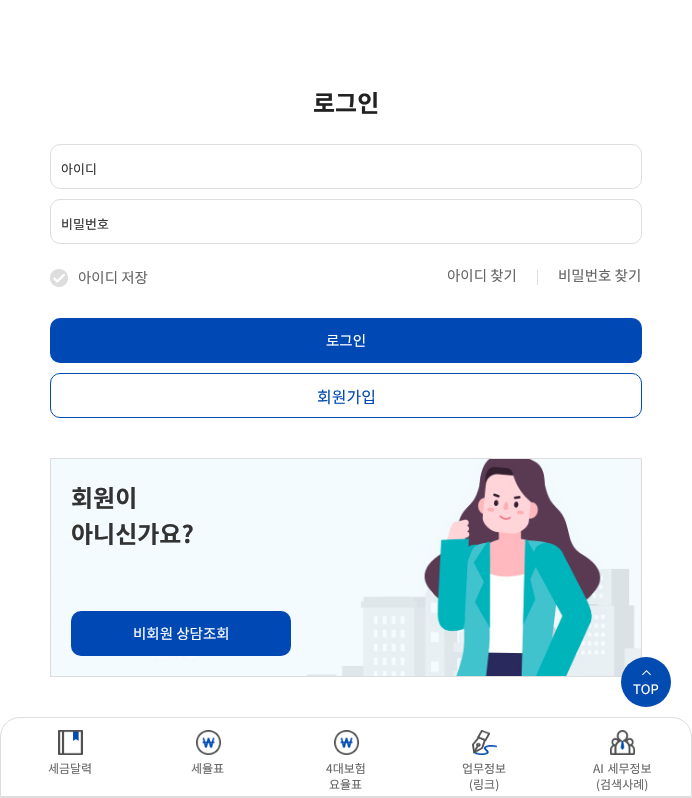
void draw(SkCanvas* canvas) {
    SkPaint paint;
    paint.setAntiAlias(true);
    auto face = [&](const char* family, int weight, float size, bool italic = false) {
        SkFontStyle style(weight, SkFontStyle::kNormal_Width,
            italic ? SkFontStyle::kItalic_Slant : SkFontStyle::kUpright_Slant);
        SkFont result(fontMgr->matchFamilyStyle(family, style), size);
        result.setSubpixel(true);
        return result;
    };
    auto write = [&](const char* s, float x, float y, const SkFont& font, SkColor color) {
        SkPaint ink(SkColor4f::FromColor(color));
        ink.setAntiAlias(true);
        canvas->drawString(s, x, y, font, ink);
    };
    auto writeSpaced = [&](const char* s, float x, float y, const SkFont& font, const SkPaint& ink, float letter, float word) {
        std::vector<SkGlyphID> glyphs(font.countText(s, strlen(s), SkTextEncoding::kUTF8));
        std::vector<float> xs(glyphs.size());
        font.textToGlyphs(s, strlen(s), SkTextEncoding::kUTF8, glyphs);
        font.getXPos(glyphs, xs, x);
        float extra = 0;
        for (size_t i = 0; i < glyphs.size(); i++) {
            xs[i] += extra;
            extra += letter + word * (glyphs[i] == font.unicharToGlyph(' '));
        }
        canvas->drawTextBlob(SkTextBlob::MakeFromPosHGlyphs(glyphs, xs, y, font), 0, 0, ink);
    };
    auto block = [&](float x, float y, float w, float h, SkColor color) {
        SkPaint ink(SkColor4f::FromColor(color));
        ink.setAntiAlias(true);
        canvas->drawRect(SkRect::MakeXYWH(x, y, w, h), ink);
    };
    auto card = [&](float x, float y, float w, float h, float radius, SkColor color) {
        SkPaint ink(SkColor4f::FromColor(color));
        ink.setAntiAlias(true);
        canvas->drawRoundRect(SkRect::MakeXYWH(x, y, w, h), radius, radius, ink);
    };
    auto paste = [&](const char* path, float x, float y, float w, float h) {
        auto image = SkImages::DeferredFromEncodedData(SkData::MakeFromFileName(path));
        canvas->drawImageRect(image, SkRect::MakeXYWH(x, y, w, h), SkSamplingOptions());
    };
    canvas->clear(SK_ColorWHITE);
    auto kFont1 = face("Noto Sans KR", 700, 24);
    write("로그인", 313, 112, kFont1, SkColorSetRGB(34, 34, 34));
    paint.setStyle(SkPaint::kStroke_Style);
    paint.setStrokeWidth(1);
    paint.setColor(SkColorSetRGB(221, 221, 221));
    canvas->drawRoundRect(SkRect::MakeXYWH(50.5f, 144.5f, 591, 44), 9.5f, 9.5f, paint);
    auto kFont2 = face("Noto Sans KR", 400, 13);
    write("아이디", 61, 174, kFont2, SkColorSetRGB(51, 51, 51));
    canvas->drawRoundRect(SkRect::MakeXYWH(50.5f, 199.5f, 591, 44), 9.5f, 9.5f, paint);
    write("비밀번호", 61, 229, kFont2, SkColorSetRGB(51, 51, 51));
    paste("pic1.png", 50, 269, 18, 18);
    auto kFont3 = face("Noto Sans KR", 400, 14.5f);
    write("아이디 저장", 78, 283, kFont3, SkColorSetRGB(102, 102, 102));
    write("아이디 찾기", 447, 281, kFont3, SkColorSetRGB(102, 102, 102));
    block(537, 270, 1, 15, SkColorSetRGB(221, 221, 221));
    write("비밀번호 찾기", 558, 281, kFont3, SkColorSetRGB(102, 102, 102));
    card(50, 318, 592, 45, 10, SkColorSetRGB(0, 73, 180));
    write("로그인", 326, 346, kFont3, SK_ColorWHITE);
    paint.setColor(SkColorSetRGB(1, 75, 177));
    canvas->drawRoundRect(SkRect::MakeXYWH(50.5f, 373.5f, 591, 44), 9.5f, 9.5f, paint);
    auto kFont4 = face("Noto Sans KR", 400, 16);
    write("회원가입", 317, 403, kFont4, SkColorSetRGB(1, 75, 177));
    paste("pic2.png", 51, 459, 590, 217);
    paint.setColor(SkColorSetRGB(221, 221, 221));
    canvas->drawRect(SkRect::MakeXYWH(50.5f, 458.5f, 591, 218), paint);
    write("회원이", 71, 507, kFont1, SkColorSetRGB(51, 51, 51));
    write("아니신가요?", 71, 543, kFont1, SkColorSetRGB(51, 51, 51));
    card(71, 611, 220, 45, 10, SkColorSetRGB(0, 73, 180));
    write("비회원 상담조회", 133, 639, kFont3, SK_ColorWHITE);
    canvas->drawPath(SkPathBuilder().moveTo(20, 717.5f).lineTo(672, 717.5f).cubicTo(683, 717.5f, 691.5f, 726, 691.5f, 737).lineTo(691.5f, 797.5f).lineTo(0.5f, 797.5f).lineTo(0.5f, 737).cubicTo(0.5f, 726, 9, 717.5f, 20, 717.5f).close().detach(), paint);
    paint.setStyle(SkPaint::kFill_Style);
    paint.setColor(SkColorSetRGB(1, 75, 177));
    canvas->drawCircle(646, 682, 25, paint);
    paste("pic3.png", 642, 670, 9, 6);
    write("TOP", 633, 694, kFont2, SK_ColorWHITE);
    paste("pic4.png", 58, 730, 25, 25);
    auto kFont5 = face("Noto Sans KR", 400, 12);
    write("세금달력", 48, 773, kFont5, SkColorSetRGB(102, 102, 102));
    block(1, 796, 690, 1, SkColorSetRGB(221, 221, 221));
    paste("pic5.png", 196, 730, 25, 25);
    write("세율표", 191, 773, kFont5, SkColorSetRGB(102, 102, 102));
    paste("pic6.png", 334, 730, 25, 25);
    write("4대보험", 326, 773, kFont5, SkColorSetRGB(102, 102, 102));
    write("요율표", 329, 789, kFont5, SkColorSetRGB(102, 102, 102));
    paste("pic7.png", 472, 730, 25, 25);
    write("업무정보", 462, 773, kFont5, SkColorSetRGB(102, 102, 102));
    write("(링크)", 469, 789, kFont5, SkColorSetRGB(102, 102, 102));
    paste("pic8.png", 610, 730, 25, 25);
    paint.setColor(SkColorSetRGB(102, 102, 102));
    writeSpaced("AI 세무정보", 593, 773, kFont5, paint, 0, 1);
    write("(검색사례)", 596, 789, kFont5, SkColorSetRGB(102, 102, 102));
}
